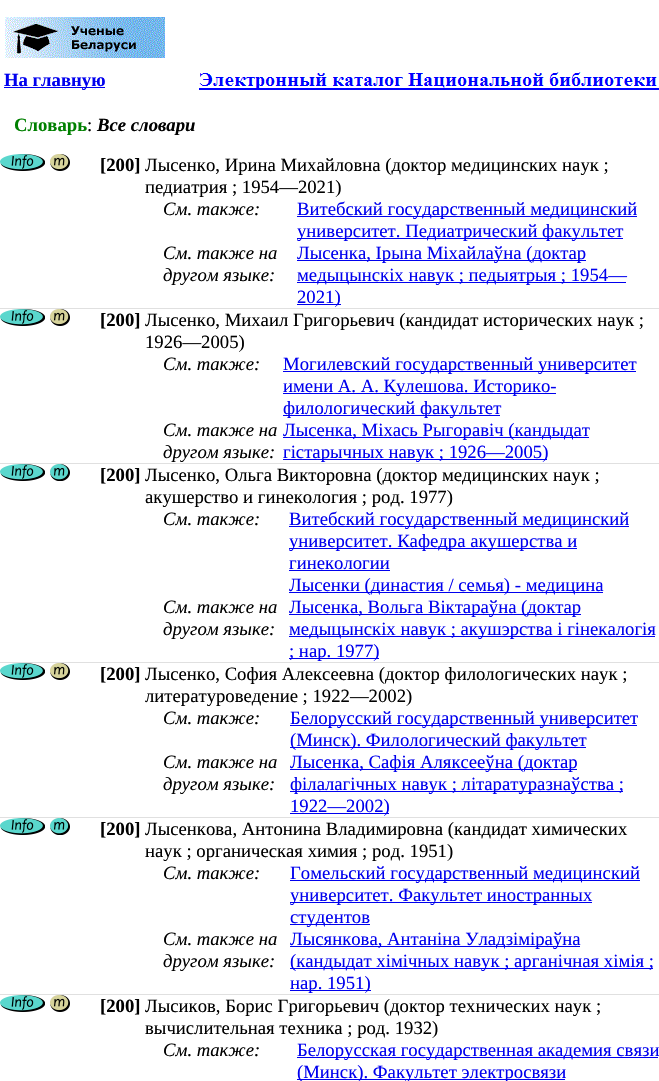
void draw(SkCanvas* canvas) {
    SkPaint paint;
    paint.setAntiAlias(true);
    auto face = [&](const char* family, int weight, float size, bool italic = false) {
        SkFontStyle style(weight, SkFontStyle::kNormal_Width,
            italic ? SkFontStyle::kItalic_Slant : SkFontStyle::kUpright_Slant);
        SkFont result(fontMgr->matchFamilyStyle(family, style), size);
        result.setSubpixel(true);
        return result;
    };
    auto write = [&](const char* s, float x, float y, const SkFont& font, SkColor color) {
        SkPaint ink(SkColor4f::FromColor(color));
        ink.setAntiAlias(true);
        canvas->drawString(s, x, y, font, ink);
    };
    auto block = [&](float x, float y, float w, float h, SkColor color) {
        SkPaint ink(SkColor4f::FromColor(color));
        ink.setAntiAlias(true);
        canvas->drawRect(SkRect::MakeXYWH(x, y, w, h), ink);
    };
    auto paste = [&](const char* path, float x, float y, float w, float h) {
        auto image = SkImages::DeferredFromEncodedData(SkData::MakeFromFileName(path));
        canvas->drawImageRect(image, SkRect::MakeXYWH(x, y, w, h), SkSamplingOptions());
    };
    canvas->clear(SK_ColorWHITE);
    paste("pic1.png", 5, 17, 160, 41);
    block(4, 87, 101, 1, SkColorSetRGB(0, 0, 238));
    auto kFont1 = face("Liberation Serif", 700, 18.7f);
    write("На главную", 4, 86, kFont1, SkColorSetRGB(0, 0, 238));
    paste("pic2.png", 199, 72, 460, 18);
    write("Словарь", 14, 131, kFont1, SkColorSetRGB(0, 128, 0));
    auto kFont2 = face("Liberation Serif", 400, 18.7f);
    write(":", 87, 131, kFont2, SK_ColorBLACK);
    auto kFont3 = face("Liberation Serif", 700, 18.7f, true);
    write("Все словари", 97, 131, kFont3, SK_ColorBLACK);
    paste("pic3.png", 0, 154, 45, 17);
    paste("pic4.png", 50, 154, 20, 17);
    write("[200]", 100, 171, kFont1, SK_ColorBLACK);
    block(0, 308, 659, 1, SkColorSetRGB(224, 224, 224));
    write("Лысенко, Ирина Михайловна (доктор медицинских наук ;", 145, 171, kFont2, SK_ColorBLACK);
    write("педиатрия ; 1954—2021)", 145, 193, kFont2, SK_ColorBLACK);
    auto kFont4 = face("Liberation Serif", 400, 18.7f, true);
    write("См. также:", 163, 215, kFont4, SK_ColorBLACK);
    block(297, 216, 340, 1, SkColorSetRGB(0, 0, 238));
    write("Витебский государственный медицинский", 297, 215, kFont2, SkColorSetRGB(0, 0, 238));
    block(297, 238, 326, 1, SkColorSetRGB(0, 0, 238));
    write("университет. Педиатрический факультет", 297, 237, kFont2, SkColorSetRGB(0, 0, 238));
    write("См. также на", 163, 259, kFont4, SK_ColorBLACK);
    write("другом языке:", 163, 281, kFont4, SK_ColorBLACK);
    block(297, 260, 289, 1, SkColorSetRGB(0, 0, 238));
    write("Лысенка, Ірына Міхайлаўна (доктар", 297, 259, kFont2, SkColorSetRGB(0, 0, 238));
    block(297, 282, 329, 1, SkColorSetRGB(0, 0, 238));
    write("медыцынскіх навук ; педыятрыя ; 1954—", 297, 281, kFont2, SkColorSetRGB(0, 0, 238));
    block(297, 304, 44, 1, SkColorSetRGB(0, 0, 238));
    write("2021)", 297, 303, kFont2, SkColorSetRGB(0, 0, 238));
    paste("pic3.png", 0, 309, 45, 17);
    paste("pic4.png", 50, 309, 20, 17);
    write("[200]", 100, 326, kFont1, SK_ColorBLACK);
    block(0, 463, 659, 1, SkColorSetRGB(224, 224, 224));
    write("Лысенко, Михаил Григорьевич (кандидат исторических наук ;", 145, 326, kFont2, SK_ColorBLACK);
    write("1926—2005)", 145, 348, kFont2, SK_ColorBLACK);
    write("См. также:", 163, 370, kFont4, SK_ColorBLACK);
    block(283, 371, 353, 1, SkColorSetRGB(0, 0, 238));
    write("Могилевский государственный университет", 283, 370, kFont2, SkColorSetRGB(0, 0, 238));
    block(283, 393, 273, 1, SkColorSetRGB(0, 0, 238));
    write("имени А. А. Кулешова. Историко-", 283, 392, kFont2, SkColorSetRGB(0, 0, 238));
    block(283, 415, 217, 1, SkColorSetRGB(0, 0, 238));
    write("филологический факультет", 283, 414, kFont2, SkColorSetRGB(0, 0, 238));
    write("См. также на", 163, 436, kFont4, SK_ColorBLACK);
    write("другом языке:", 163, 458, kFont4, SK_ColorBLACK);
    block(283, 437, 306, 1, SkColorSetRGB(0, 0, 238));
    write("Лысенка, Міхась Рыгоравіч (кандыдат", 283, 436, kFont2, SkColorSetRGB(0, 0, 238));
    block(283, 459, 264, 1, SkColorSetRGB(0, 0, 238));
    write("гістарычных навук ; 1926—2005)", 283, 458, kFont2, SkColorSetRGB(0, 0, 238));
    paste("pic3.png", 0, 464, 45, 17);
    paste("pic5.png", 50, 464, 20, 17);
    write("[200]", 100, 481, kFont1, SK_ColorBLACK);
    block(0, 662, 659, 1, SkColorSetRGB(224, 224, 224));
    write("Лысенко, Ольга Викторовна (доктор медицинских наук ;", 145, 481, kFont2, SK_ColorBLACK);
    write("акушерство и гинекология ; род. 1977)", 145, 503, kFont2, SK_ColorBLACK);
    write("См. также:", 163, 525, kFont4, SK_ColorBLACK);
    block(289, 526, 340, 1, SkColorSetRGB(0, 0, 238));
    write("Витебский государственный медицинский", 289, 525, kFont2, SkColorSetRGB(0, 0, 238));
    block(289, 548, 288, 1, SkColorSetRGB(0, 0, 238));
    write("университет. Кафедра акушерства и", 289, 547, kFont2, SkColorSetRGB(0, 0, 238));
    write("гинекологии", 289, 569, kFont2, SkColorSetRGB(0, 0, 238));
    block(289, 570, 101, 1, SkColorSetRGB(0, 0, 238));
    block(289, 592, 314, 1, SkColorSetRGB(0, 0, 238));
    write("Лысенки (династия / семья) - медицина", 289, 591, kFont2, SkColorSetRGB(0, 0, 238));
    write("См. также на", 163, 613, kFont4, SK_ColorBLACK);
    write("другом языке:", 163, 635, kFont4, SK_ColorBLACK);
    block(289, 614, 292, 1, SkColorSetRGB(0, 0, 238));
    write("Лысенка, Вольга Віктараўна (доктар", 289, 613, kFont2, SkColorSetRGB(0, 0, 238));
    block(289, 636, 366, 1, SkColorSetRGB(0, 0, 238));
    write("медыцынскіх навук ; акушэрства і гінекалогія", 289, 635, kFont2, SkColorSetRGB(0, 0, 238));
    block(289, 658, 90, 1, SkColorSetRGB(0, 0, 238));
    write("; нар. 1977)", 289, 657, kFont2, SkColorSetRGB(0, 0, 238));
    paste("pic3.png", 0, 663, 45, 17);
    paste("pic4.png", 50, 663, 20, 17);
    write("[200]", 100, 680, kFont1, SK_ColorBLACK);
    block(0, 817, 659, 1, SkColorSetRGB(224, 224, 224));
    write("Лысенко, София Алексеевна (доктор филологических наук ;", 145, 680, kFont2, SK_ColorBLACK);
    write("литературоведение ; 1922—2002)", 145, 702, kFont2, SK_ColorBLACK);
    write("См. также:", 163, 724, kFont4, SK_ColorBLACK);
    block(290, 725, 347, 1, SkColorSetRGB(0, 0, 238));
    write("Белорусский государственный университет", 290, 724, kFont2, SkColorSetRGB(0, 0, 238));
    block(290, 747, 296, 1, SkColorSetRGB(0, 0, 238));
    write("(Минск). Филологический факультет", 290, 746, kFont2, SkColorSetRGB(0, 0, 238));
    write("См. также на", 163, 768, kFont4, SK_ColorBLACK);
    write("другом языке:", 163, 790, kFont4, SK_ColorBLACK);
    block(290, 769, 287, 1, SkColorSetRGB(0, 0, 238));
    write("Лысенка, Сафія Аляксееўна (доктар", 290, 768, kFont2, SkColorSetRGB(0, 0, 238));
    block(290, 791, 333, 1, SkColorSetRGB(0, 0, 238));
    write("філалагічных навук ; літаратуразнаўства ;", 290, 790, kFont2, SkColorSetRGB(0, 0, 238));
    block(290, 813, 99, 1, SkColorSetRGB(0, 0, 238));
    write("1922—2002)", 290, 812, kFont2, SkColorSetRGB(0, 0, 238));
    paste("pic3.png", 0, 818, 45, 17);
    paste("pic5.png", 50, 818, 20, 17);
    write("[200]", 100, 835, kFont1, SK_ColorBLACK);
    block(0, 994, 659, 1, SkColorSetRGB(224, 224, 224));
    write("Лысенкова, Антонина Владимировна (кандидат химических", 145, 835, kFont2, SK_ColorBLACK);
    write("наук ; органическая химия ; род. 1951)", 145, 857, kFont2, SK_ColorBLACK);
    write("См. также:", 163, 879, kFont4, SK_ColorBLACK);
    block(290, 880, 350, 1, SkColorSetRGB(0, 0, 238));
    write("Гомельский государственный медицинский", 290, 879, kFont2, SkColorSetRGB(0, 0, 238));
    block(290, 902, 302, 1, SkColorSetRGB(0, 0, 238));
    write("университет. Факультет иностранных", 290, 901, kFont2, SkColorSetRGB(0, 0, 238));
    block(290, 924, 80, 1, SkColorSetRGB(0, 0, 238));
    write("студентов", 290, 923, kFont2, SkColorSetRGB(0, 0, 238));
    write("См. также на", 163, 945, kFont4, SK_ColorBLACK);
    write("другом языке:", 163, 967, kFont4, SK_ColorBLACK);
    block(290, 946, 290, 1, SkColorSetRGB(0, 0, 238));
    write("Лысянкова, Антаніна Уладзіміраўна", 290, 945, kFont2, SkColorSetRGB(0, 0, 238));
    block(290, 968, 363, 1, SkColorSetRGB(0, 0, 238));
    write("(кандыдат хімічных навук ; арганічная хімія ;", 290, 967, kFont2, SkColorSetRGB(0, 0, 238));
    block(290, 990, 81, 1, SkColorSetRGB(0, 0, 238));
    write("нар. 1951)", 290, 989, kFont2, SkColorSetRGB(0, 0, 238));
    paste("pic3.png", 0, 995, 45, 17);
    paste("pic4.png", 50, 995, 20, 17);
    write("[200]", 100, 1012, kFont1, SK_ColorBLACK);
    write("Лысиков, Борис Григорьевич (доктор технических наук ;", 145, 1012, kFont2, SK_ColorBLACK);
    write("вычислительная техника ; род. 1932)", 145, 1034, kFont2, SK_ColorBLACK);
    write("См. также:", 163, 1056, kFont4, SK_ColorBLACK);
    block(297, 1057, 361, 1, SkColorSetRGB(0, 0, 238));
    write("Белорусская государственная академия связи", 297, 1056, kFont2, SkColorSetRGB(0, 0, 238));
    block(297, 1079, 268, 1, SkColorSetRGB(0, 0, 238));
    write("(Минск). Факультет электросвязи", 297, 1078, kFont2, SkColorSetRGB(0, 0, 238));
}
